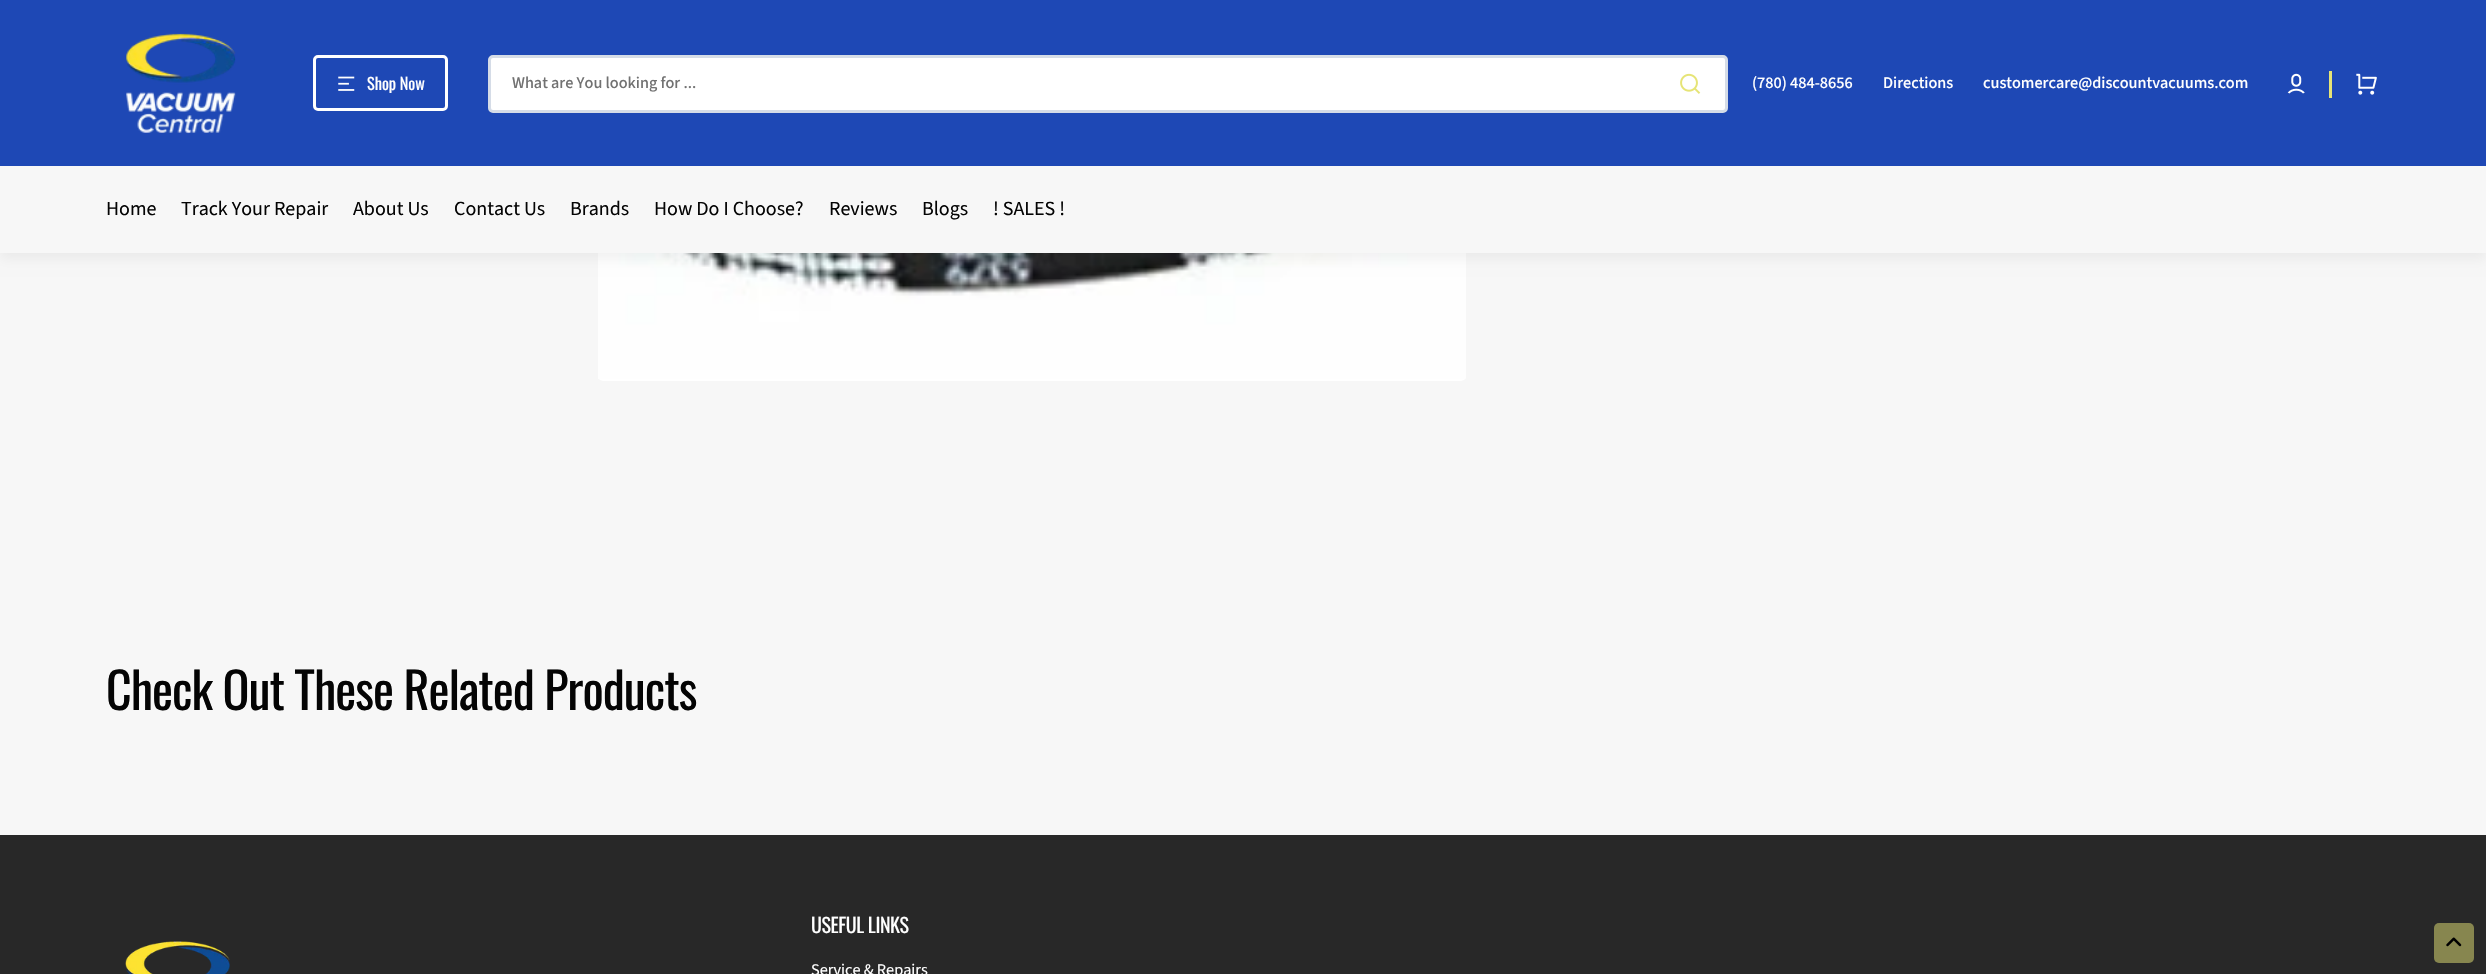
void draw(SkCanvas* canvas) {
    SkPaint paint;
    paint.setAntiAlias(true);
    auto face = [&](const char* family, int weight, float size, bool italic = false) {
        SkFontStyle style(weight, SkFontStyle::kNormal_Width,
            italic ? SkFontStyle::kItalic_Slant : SkFontStyle::kUpright_Slant);
        SkFont result(fontMgr->matchFamilyStyle(family, style), size);
        result.setSubpixel(true);
        return result;
    };
    auto write = [&](const char* s, float x, float y, const SkFont& font, SkColor color) {
        SkPaint ink(SkColor4f::FromColor(color));
        ink.setAntiAlias(true);
        canvas->drawString(s, x, y, font, ink);
    };
    auto writeSpaced = [&](const char* s, float x, float y, const SkFont& font, const SkPaint& ink, float letter, float word) {
        std::vector<SkGlyphID> glyphs(font.countText(s, strlen(s), SkTextEncoding::kUTF8));
        std::vector<float> xs(glyphs.size());
        font.textToGlyphs(s, strlen(s), SkTextEncoding::kUTF8, glyphs);
        font.getXPos(glyphs, xs, x);
        float extra = 0;
        for (size_t i = 0; i < glyphs.size(); i++) {
            xs[i] += extra;
            extra += letter + word * (glyphs[i] == font.unicharToGlyph(' '));
        }
        canvas->drawTextBlob(SkTextBlob::MakeFromPosHGlyphs(glyphs, xs, y, font), 0, 0, ink);
    };
    auto block = [&](float x, float y, float w, float h, SkColor color) {
        SkPaint ink(SkColor4f::FromColor(color));
        ink.setAntiAlias(true);
        canvas->drawRect(SkRect::MakeXYWH(x, y, w, h), ink);
    };
    auto card = [&](float x, float y, float w, float h, float radius, SkColor color) {
        SkPaint ink(SkColor4f::FromColor(color));
        ink.setAntiAlias(true);
        canvas->drawRoundRect(SkRect::MakeXYWH(x, y, w, h), radius, radius, ink);
    };
    auto paste = [&](const char* path, float x, float y, float w, float h) {
        auto image = SkImages::DeferredFromEncodedData(SkData::MakeFromFileName(path));
        canvas->drawImageRect(image, SkRect::MakeXYWH(x, y, w, h), SkSamplingOptions());
    };
    canvas->clear(SkColorSetRGB(247, 247, 247));
    card(598, -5, 868, 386, 5, SK_ColorWHITE);
    paste("pic6.png", 598, 253, 868, 126);
    paint.setColor(SkColorSetARGB(13, 1, 1, 1));
    paint.setMaskFilter(SkMaskFilter::MakeBlur(kNormal_SkBlurStyle, 6));
    canvas->drawRect(SkRect::MakeXYWH(0, 173, 2486, 86), paint);
    paint.setMaskFilter(nullptr);
    block(0, 0, 2486, 166, SkColorSetRGB(30, 72, 181));
    paste("pic1.png", 126, 33, 110, 101);
    paint.setStyle(SkPaint::kStroke_Style);
    paint.setStrokeWidth(3);
    paint.setColor(SK_ColorWHITE);
    canvas->drawRoundRect(SkRect::MakeXYWH(314.5f, 56.5f, 132, 53), 3.5f, 3.5f, paint);
    paste("pic2.png", 338, 76, 17, 15);
    auto kFont1 = face("Oswald", 400, 16.25f);
    write("Shop Now", 367, 90, kFont1, SK_ColorWHITE);
    paint.setStyle(SkPaint::kFill_Style);
    canvas->drawRoundRect(SkRect::MakeXYWH(489.5f, 56.5f, 1237, 55), 3.5f, 3.5f, paint);
    paint.setStyle(SkPaint::kStroke_Style);
    paint.setColor(SkColorSetRGB(213, 220, 231));
    canvas->drawRoundRect(SkRect::MakeXYWH(489.5f, 56.5f, 1237, 55), 3.5f, 3.5f, paint);
    auto kFont2 = face("Source Sans Pro", 500, 16.25f);
    write("What are You looking for ...", 512, 88, kFont2, SkColorSetRGB(113, 113, 113));
    paste("pic3.png", 1680, 73, 21, 21);
    write("(780) 484-8656", 1752, 88, kFont2, SK_ColorWHITE);
    write("Directions", 1883, 88, kFont2, SK_ColorWHITE);
    write("customercare@discountvacuums.com", 1983, 88, kFont2, SK_ColorWHITE);
    paste("pic4.png", 2287, 73, 18, 21);
    block(2329, 71, 3, 27, SkColorSetRGB(230, 228, 118));
    paste("pic5.png", 2356, 73, 21, 22);
    block(0, 166, 2486, 87, SkColorSetRGB(247, 247, 247));
    auto kFont3 = face("Source Sans Pro", 400, 20);
    write("Home", 106, 215, kFont3, SkColorSetRGB(4, 4, 4));
    write("Track Your Repair", 181, 215, kFont3, SkColorSetRGB(4, 4, 4));
    write("About Us", 353, 215, kFont3, SkColorSetRGB(4, 4, 4));
    write("Contact Us", 454, 215, kFont3, SkColorSetRGB(4, 4, 4));
    write("Brands", 570, 215, kFont3, SkColorSetRGB(4, 4, 4));
    write("How Do I Choose?", 654, 215, kFont3, SkColorSetRGB(4, 4, 4));
    write("Reviews", 829, 215, kFont3, SkColorSetRGB(4, 4, 4));
    write("Blogs", 922, 215, kFont3, SkColorSetRGB(4, 4, 4));
    write("! SALES !", 993, 215, kFont3, SkColorSetRGB(4, 4, 4));
    auto kFont4 = face("Oswald", 400, 50);
    paint.setStyle(SkPaint::kFill_Style);
    paint.setColor(SkColorSetRGB(4, 4, 4));
    writeSpaced("Check Out These Related Products", 106, 710, kFont4, paint, -1, 0);
    block(0, 835, 2486, 139, SkColorSetRGB(40, 40, 40));
    paste("pic7.png", 125, 941, 105, 33);
    auto kFont5 = face("Oswald", 400, 20);
    paint.setColor(SK_ColorWHITE);
    writeSpaced("USEFUL LINKS", 811, 933, kFont5, paint, -0.4f, 0);
    auto kFont6 = face("Source Sans Pro", 400, 16.25f);
    write("Service & Repairs", 811, 975, kFont6, SK_ColorWHITE);
    card(2434, 923, 40, 40, 5, SkColorSetRGB(135, 134, 79));
    paste("pic8.png", 2446, 937, 16, 10);
}
